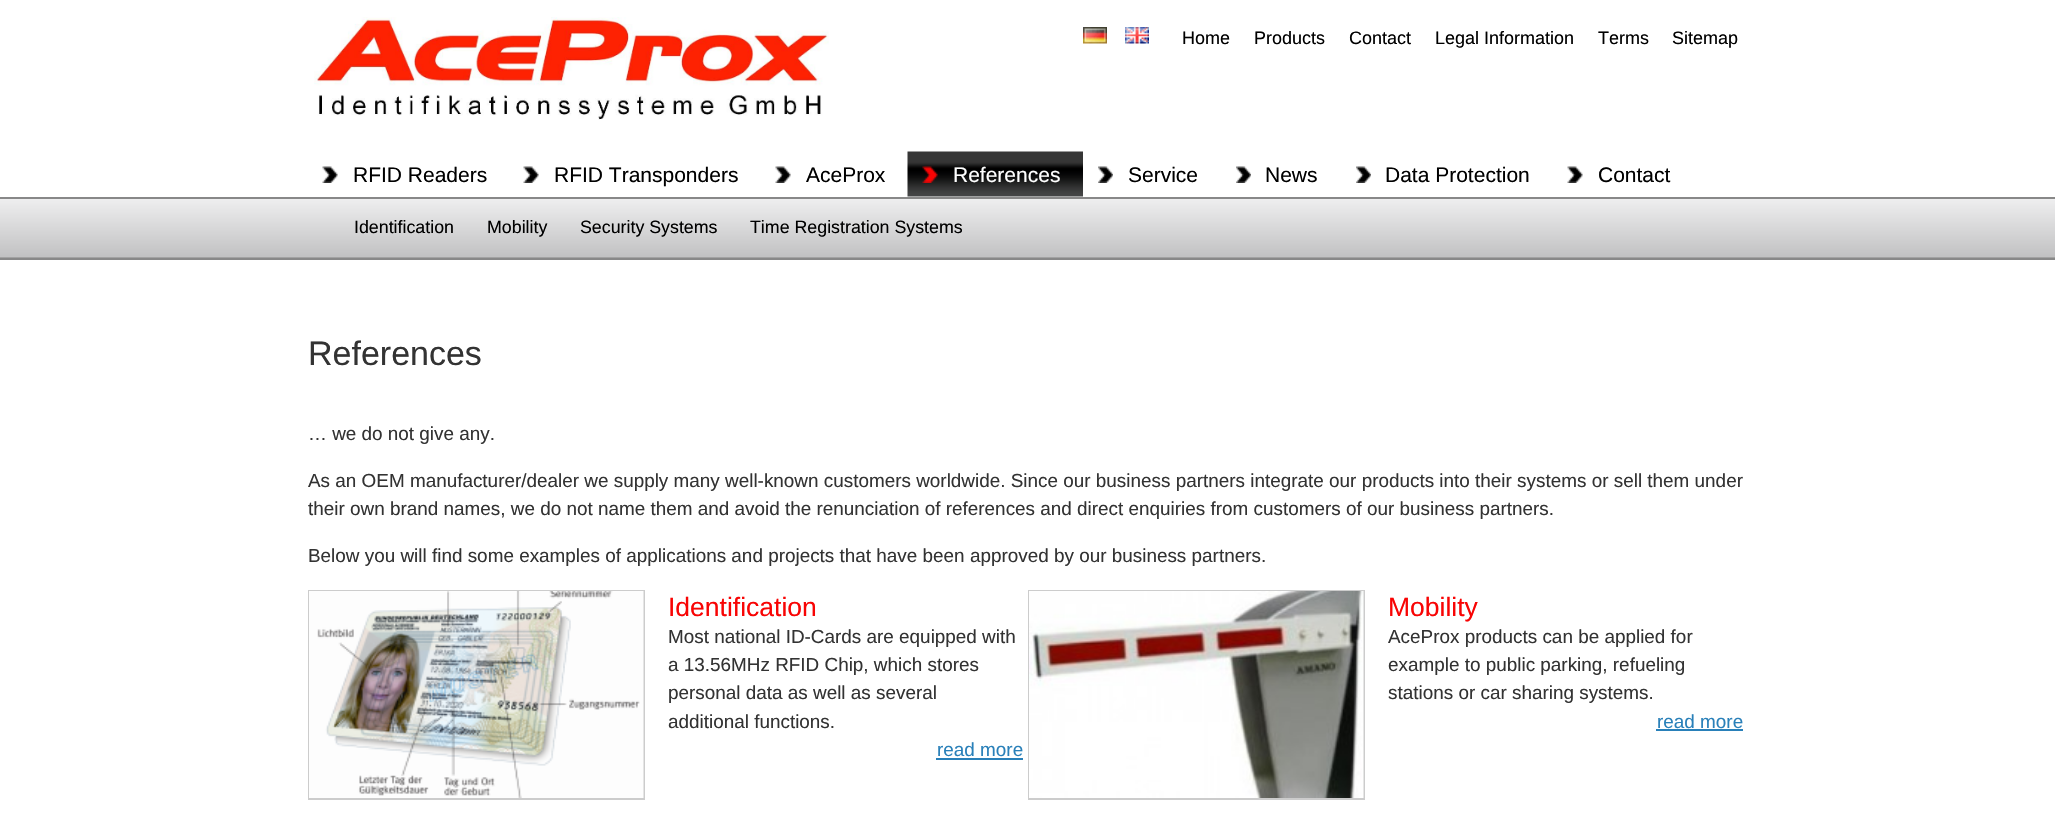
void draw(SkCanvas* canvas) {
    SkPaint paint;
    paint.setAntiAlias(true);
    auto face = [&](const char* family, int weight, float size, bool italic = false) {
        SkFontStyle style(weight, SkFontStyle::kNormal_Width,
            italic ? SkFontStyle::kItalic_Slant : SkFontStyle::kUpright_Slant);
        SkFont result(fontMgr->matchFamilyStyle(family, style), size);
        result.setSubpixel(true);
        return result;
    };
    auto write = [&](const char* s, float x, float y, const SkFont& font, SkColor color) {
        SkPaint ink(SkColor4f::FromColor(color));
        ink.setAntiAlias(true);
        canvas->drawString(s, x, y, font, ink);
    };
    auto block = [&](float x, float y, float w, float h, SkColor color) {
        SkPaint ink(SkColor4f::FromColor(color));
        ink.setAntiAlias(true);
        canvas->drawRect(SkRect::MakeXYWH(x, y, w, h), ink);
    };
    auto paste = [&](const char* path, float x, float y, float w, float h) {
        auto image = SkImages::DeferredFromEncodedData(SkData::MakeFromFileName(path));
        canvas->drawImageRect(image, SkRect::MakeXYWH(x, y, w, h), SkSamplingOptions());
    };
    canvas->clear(SK_ColorWHITE);
    paste("pic1.png", 314, 17, 515, 103);
    paste("pic2.png", 1083, 27, 24, 17);
    paste("pic3.png", 1125, 27, 24, 17);
    auto kFont1 = face("Liberation Sans", 400, 18);
    write("Home", 1182, 44, kFont1, SK_ColorBLACK);
    write("Products", 1254, 44, kFont1, SK_ColorBLACK);
    write("Contact", 1349, 44, kFont1, SK_ColorBLACK);
    write("Legal Information", 1435, 44, kFont1, SK_ColorBLACK);
    write("Terms", 1598, 44, kFont1, SK_ColorBLACK);
    write("Sitemap", 1672, 44, kFont1, SK_ColorBLACK);
    paste("pic4.png", 322, 166, 16, 17);
    auto kFont2 = face("Liberation Sans", 400, 21);
    write("RFID Readers", 353, 182, kFont2, SK_ColorBLACK);
    paste("pic5.png", 907, 151, 176, 46);
    paste("pic6.png", 922, 166, 16, 17);
    write("References", 953, 182, kFont2, SK_ColorWHITE);
    {
        const SkColor colors[] = {SkColorSetRGB(239, 239, 240), SkColorSetRGB(193, 193, 194), SkColorSetRGB(153, 153, 153), SkColorSetRGB(206, 206, 206)};
        const float stops[] = {0, 0.99f, 0.99f, 1};
        const SkPoint ends[] = {{1028, 198}, {1028, 258}};
        paint.setShader(SkGradientShader::MakeLinear(ends, colors, stops, 4, SkTileMode::kClamp));
        paint.setAlpha(255);
    }
    canvas->drawRect(SkRect::MakeXYWH(0, 199, 2055, 59), paint);
    block(0, 197, 2055, 2, SkColorSetRGB(136, 136, 136));
    block(0, 258, 2055, 2, SkColorSetRGB(136, 136, 136));
    auto kFont3 = face("Liberation Sans", 400, 17.8f);
    write("Identification", 354, 233, kFont3, SK_ColorBLACK);
    write("Mobility", 487, 233, kFont3, SK_ColorBLACK);
    write("Security Systems", 580, 233, kFont3, SK_ColorBLACK);
    write("Time Registration Systems", 750, 233, kFont3, SK_ColorBLACK);
    paste("pic7.png", 523, 166, 16, 17);
    write("RFID Transponders", 554, 182, kFont2, SK_ColorBLACK);
    paste("pic4.png", 775, 166, 16, 17);
    write("AceProx", 806, 182, kFont2, SK_ColorBLACK);
    paste("pic8.png", 1098, 166, 15, 17);
    write("Service", 1128, 182, kFont2, SK_ColorBLACK);
    paste("pic8.png", 1236, 166, 15, 17);
    write("News", 1265, 182, kFont2, SK_ColorBLACK);
    paste("pic8.png", 1356, 166, 15, 17);
    write("Data Protection", 1385, 182, kFont2, SK_ColorBLACK);
    paste("pic4.png", 1567, 166, 16, 17);
    write("Contact", 1598, 182, kFont2, SK_ColorBLACK);
    auto kFont4 = face("Liberation Sans", 400, 34);
    write("References", 308, 365, kFont4, SkColorSetRGB(51, 51, 51));
    auto kFont5 = face("Liberation Sans", 400, 18.9f);
    write("… we do not give any.", 308, 440, kFont5, SkColorSetRGB(51, 51, 51));
    write("As an OEM manufacturer/dealer we supply many well-known customers worldwide. Since our business partners integrate our products into their systems or sell them under", 308, 487, kFont5, SkColorSetRGB(51, 51, 51));
    write("their own brand names, we do not name them and avoid the renunciation of references and direct enquiries from customers of our business partners.", 308, 515, kFont5, SkColorSetRGB(51, 51, 51));
    write("Below you will find some examples of applications and projects that have been approved by our business partners.", 308, 562, kFont5, SkColorSetRGB(51, 51, 51));
    paint.setStyle(SkPaint::kStroke_Style);
    paint.setStrokeWidth(2);
    paint.setShader(nullptr);
    paint.setColor(SkColorSetRGB(204, 204, 204));
    canvas->drawRect(SkRect::MakeXYWH(309, 591, 335, 208), paint);
    paste("pic9.png", 309, 591, 335, 207);
    auto kFont6 = face("Liberation Sans", 400, 26.5f);
    write("Identification", 668, 616, kFont6, SkColorSetRGB(248, 4, 4));
    write("Most national ID-Cards are equipped with", 668, 643, kFont5, SkColorSetRGB(51, 51, 51));
    write("a 13.56MHz RFID Chip, which stores", 668, 671, kFont5, SkColorSetRGB(51, 51, 51));
    write("personal data as well as several", 668, 699, kFont5, SkColorSetRGB(51, 51, 51));
    write("additional functions.", 668, 728, kFont5, SkColorSetRGB(51, 51, 51));
    write("read more", 937, 756, kFont5, SkColorSetRGB(41, 128, 185));
    block(936, 758, 87, 2, SkColorSetRGB(41, 128, 185));
    canvas->drawRect(SkRect::MakeXYWH(1029, 591, 335, 208), paint);
    paste("pic10.png", 1029, 591, 335, 207);
    write("Mobility", 1388, 616, kFont6, SkColorSetRGB(248, 4, 4));
    write("AceProx products can be applied for", 1388, 643, kFont5, SkColorSetRGB(51, 51, 51));
    write("example to public parking, refueling", 1388, 671, kFont5, SkColorSetRGB(51, 51, 51));
    write("stations or car sharing systems.", 1388, 699, kFont5, SkColorSetRGB(51, 51, 51));
    write("read more", 1657, 728, kFont5, SkColorSetRGB(41, 128, 185));
    block(1656, 729, 87, 2, SkColorSetRGB(41, 128, 185));
}
